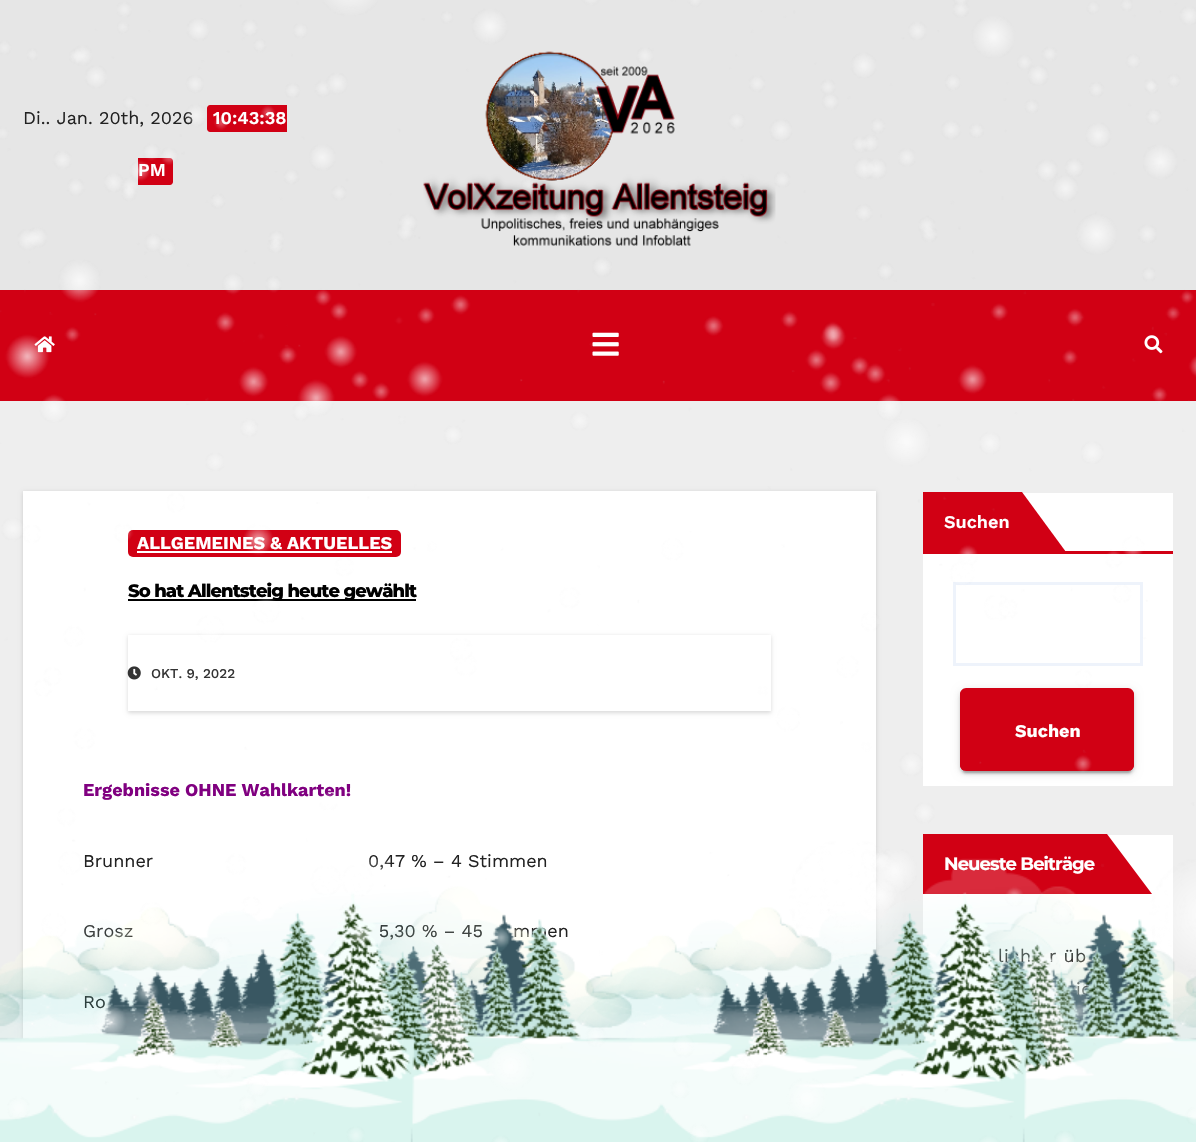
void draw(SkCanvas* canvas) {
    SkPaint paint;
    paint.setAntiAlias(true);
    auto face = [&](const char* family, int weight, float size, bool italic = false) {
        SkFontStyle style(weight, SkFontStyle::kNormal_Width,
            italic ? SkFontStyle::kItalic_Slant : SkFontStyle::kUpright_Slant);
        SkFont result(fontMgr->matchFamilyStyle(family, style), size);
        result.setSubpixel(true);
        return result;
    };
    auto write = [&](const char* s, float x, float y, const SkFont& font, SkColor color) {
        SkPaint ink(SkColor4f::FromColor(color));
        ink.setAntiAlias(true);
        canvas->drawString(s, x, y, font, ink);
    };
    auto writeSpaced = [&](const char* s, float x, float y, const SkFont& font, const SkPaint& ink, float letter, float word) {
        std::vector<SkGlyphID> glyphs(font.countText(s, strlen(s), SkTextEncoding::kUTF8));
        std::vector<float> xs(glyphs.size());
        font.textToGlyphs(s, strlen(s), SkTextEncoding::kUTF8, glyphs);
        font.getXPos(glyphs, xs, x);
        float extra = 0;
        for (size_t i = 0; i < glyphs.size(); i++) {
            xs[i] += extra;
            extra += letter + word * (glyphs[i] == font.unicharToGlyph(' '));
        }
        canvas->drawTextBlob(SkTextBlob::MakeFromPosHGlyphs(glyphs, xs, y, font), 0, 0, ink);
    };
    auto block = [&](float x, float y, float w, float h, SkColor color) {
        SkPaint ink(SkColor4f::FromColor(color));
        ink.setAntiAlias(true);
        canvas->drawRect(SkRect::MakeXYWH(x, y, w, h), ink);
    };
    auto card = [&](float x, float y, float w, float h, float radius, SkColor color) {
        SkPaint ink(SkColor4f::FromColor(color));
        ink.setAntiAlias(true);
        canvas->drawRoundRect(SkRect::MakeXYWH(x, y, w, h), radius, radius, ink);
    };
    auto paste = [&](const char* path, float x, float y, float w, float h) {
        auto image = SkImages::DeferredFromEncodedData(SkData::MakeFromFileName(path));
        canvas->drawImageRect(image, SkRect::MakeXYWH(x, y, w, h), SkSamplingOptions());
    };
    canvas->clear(SkColorSetRGB(238, 238, 238));
    block(0, 0, 1196, 290, SkColorSetRGB(230, 230, 230));
    auto kFont1 = face("Work Sans", 400, 18);
    write("Di.. Jan. 20th, 2026", 23, 124, kFont1, SkColorSetRGB(34, 34, 34));
    paint.setColor(SkColorSetRGB(209, 0, 20));
    canvas->drawPath(SkPathBuilder().moveTo(210, 105).lineTo(287, 105).lineTo(287, 132).lineTo(210, 132).cubicTo(208.5f, 132, 207, 130.5f, 207, 129).lineTo(207, 108).cubicTo(207, 106.5f, 208.5f, 105, 210, 105).close().detach(), paint);
    auto kFont2 = face("Work Sans", 600, 18);
    write("10:43:38", 213, 124, kFont2, SK_ColorWHITE);
    canvas->drawPath(SkPathBuilder().moveTo(138, 158).lineTo(170, 158).cubicTo(171.5f, 158, 173, 159.5f, 173, 161).lineTo(173, 182).cubicTo(173, 183.5f, 171.5f, 185, 170, 185).lineTo(138, 185).close().detach(), paint);
    write("PM", 138, 176, kFont2, SK_ColorWHITE);
    paste("pic2.png", 423, 51, 353, 195);
    block(0, 290, 1196, 111, SkColorSetRGB(209, 0, 20));
    paste("pic3.png", 34, 336, 21, 17);
    paste("pic4.png", 592, 332, 27, 24);
    paste("pic5.png", 1144, 335, 19, 19);
    paint.setColor(SkColorSetARGB(38, 0, 0, 0));
    paint.setMaskFilter(SkMaskFilter::MakeBlur(kNormal_SkBlurStyle, 2));
    canvas->drawRect(SkRect::MakeXYWH(23, 492, 853, 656), paint);
    paint.setMaskFilter(nullptr);
    block(23, 491, 853, 549, SK_ColorWHITE);
    card(128, 530, 273, 27, 5, SkColorSetRGB(209, 0, 20));
    auto kFont3 = face("Work Sans", 700, 18);
    write("ALLGEMEINES & AKTUELLES", 137, 549, kFont3, SK_ColorWHITE);
    block(137, 551, 255, 2, SK_ColorWHITE);
    block(128, 599, 288, 2, SK_ColorBLACK);
    auto kFont4 = face("Montserrat", 800, 18);
    paint.setColor(SK_ColorBLACK);
    writeSpaced("So hat Allentsteig heute gewählt", 128, 597, kFont4, paint, -0.9f, 0);
    canvas->save();
    canvas->clipPath(SkPathBuilder(SkPathFillType::kEvenOdd).moveTo(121, 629).lineTo(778, 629).lineTo(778, 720).lineTo(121, 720).close().moveTo(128, 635).lineTo(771, 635).lineTo(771, 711).lineTo(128, 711).close().detach(), true);
    paint.setColor(SkColorSetARGB(38, 0, 0, 0));
    paint.setMaskFilter(SkMaskFilter::MakeBlur(kNormal_SkBlurStyle, 2));
    canvas->drawRect(SkRect::MakeXYWH(128, 636, 643, 77), paint);
    paint.setMaskFilter(nullptr);
    canvas->restore();
    paste("pic6.png", 127, 666, 14, 14);
    auto kFont5 = face("Work Sans", 500, 13.5f);
    write("OKT. 9, 2022", 151, 678, kFont5, SkColorSetRGB(51, 51, 51));
    write("Ergebnisse OHNE Wahlkarten!", 83, 796, kFont3, SkColorSetRGB(128, 0, 128));
    write("Brunner                                   0,47 % – 4 Stimmen", 83, 867, kFont1, SkColorSetRGB(34, 34, 34));
    write("Grosz                                        5,30 % – 45", 83, 937, kFont1, SkColorSetRGB(34, 34, 34));
    write("mmen", 513, 937, kFont1, SkColorSetRGB(34, 34, 34));
    write("Ro", 83, 1008, kFont1, SkColorSetRGB(34, 34, 34));
    block(923, 493, 250, 293, SK_ColorWHITE);
    block(923, 492, 99, 59, SkColorSetRGB(209, 0, 20));
    write("Suchen", 944, 528, kFont2, SK_ColorWHITE);
    paint.setColor(SkColorSetRGB(209, 0, 20));
    canvas->drawPath(SkPathBuilder().moveTo(1022, 552).lineTo(1022, 492).lineTo(1066, 552).close().detach(), paint);
    block(923, 551, 250, 3, SkColorSetRGB(209, 0, 20));
    paint.setStyle(SkPaint::kStroke_Style);
    paint.setStrokeWidth(3);
    paint.setColor(SkColorSetRGB(238, 243, 251));
    canvas->drawRect(SkRect::MakeXYWH(954.5f, 583.5f, 187, 81), paint);
    paint.setStyle(SkPaint::kFill_Style);
    paint.setColor(SkColorSetARGB(31, 0, 0, 0));
    paint.setMaskFilter(SkMaskFilter::MakeBlur(kNormal_SkBlurStyle, 4));
    canvas->drawRoundRect(SkRect::MakeXYWH(960, 690, 174, 83), 6, 6, paint);
    paint.setMaskFilter(nullptr);
    paint.setColor(SkColorSetARGB(51, 0, 0, 0));
    paint.setMaskFilter(SkMaskFilter::MakeBlur(kNormal_SkBlurStyle, 1));
    canvas->drawRoundRect(SkRect::MakeXYWH(963, 696, 168, 77), 3, 3, paint);
    paint.setMaskFilter(nullptr);
    paint.setColor(SkColorSetARGB(36, 0, 0, 0));
    paint.setMaskFilter(SkMaskFilter::MakeBlur(kNormal_SkBlurStyle, 1.5f));
    canvas->drawRoundRect(SkRect::MakeXYWH(960, 692, 174, 82), 6, 6, paint);
    paint.setMaskFilter(nullptr);
    card(960, 689, 174, 82, 6, SkColorSetRGB(209, 0, 20));
    paint.setColor(SkColorSetRGB(209, 0, 20));
    canvas->drawPath(SkPathBuilder(SkPathFillType::kEvenOdd).moveTo(966, 688).lineTo(1128, 688).cubicTo(1131, 688, 1134, 691, 1134, 694).lineTo(1134, 765).cubicTo(1134, 768, 1131, 771, 1128, 771).lineTo(966, 771).cubicTo(963, 771, 960, 768, 960, 765).lineTo(960, 694).cubicTo(960, 691, 963, 688, 966, 688).close().moveTo(966, 690).lineTo(1128, 690).cubicTo(1130, 690, 1132, 692, 1132, 694).lineTo(1132, 765).cubicTo(1132, 768, 1130, 771, 1128, 771).lineTo(966, 771).cubicTo(964, 771, 962, 768, 962, 765).lineTo(962, 694).cubicTo(962, 692, 964, 690, 966, 690).close().detach(), paint);
    write("Suchen", 1015, 737, kFont3, SK_ColorWHITE);
    block(923, 835, 250, 197, SK_ColorWHITE);
    block(923, 834, 184, 60, SkColorSetRGB(209, 0, 20));
    auto kFont6 = face("Montserrat", 700, 18);
    paint.setColor(SK_ColorWHITE);
    writeSpaced("Neueste Beiträge", 944, 870, kFont6, paint, -0.9f, 0);
    paint.setColor(SkColorSetRGB(209, 0, 20));
    canvas->drawPath(SkPathBuilder().moveTo(1107, 894).lineTo(1107, 834).lineTo(1152, 894).close().detach(), paint);
    paint.setColor(SkColorSetRGB(34, 34, 34));
    writeSpaced("lich", 998, 962, kFont1, paint, 0.5f, 0);
    writeSpaced("r üb", 1049, 962, kFont1, paint, 0.5f, 0);
    writeSpaced("ic", 1076, 995, kFont1, paint, 0.5f, 0);
    paste("pic7.png", 0, 858, 1196, 284);
    paste("pic1.png", 0, 0, 1196, 1142);
}
